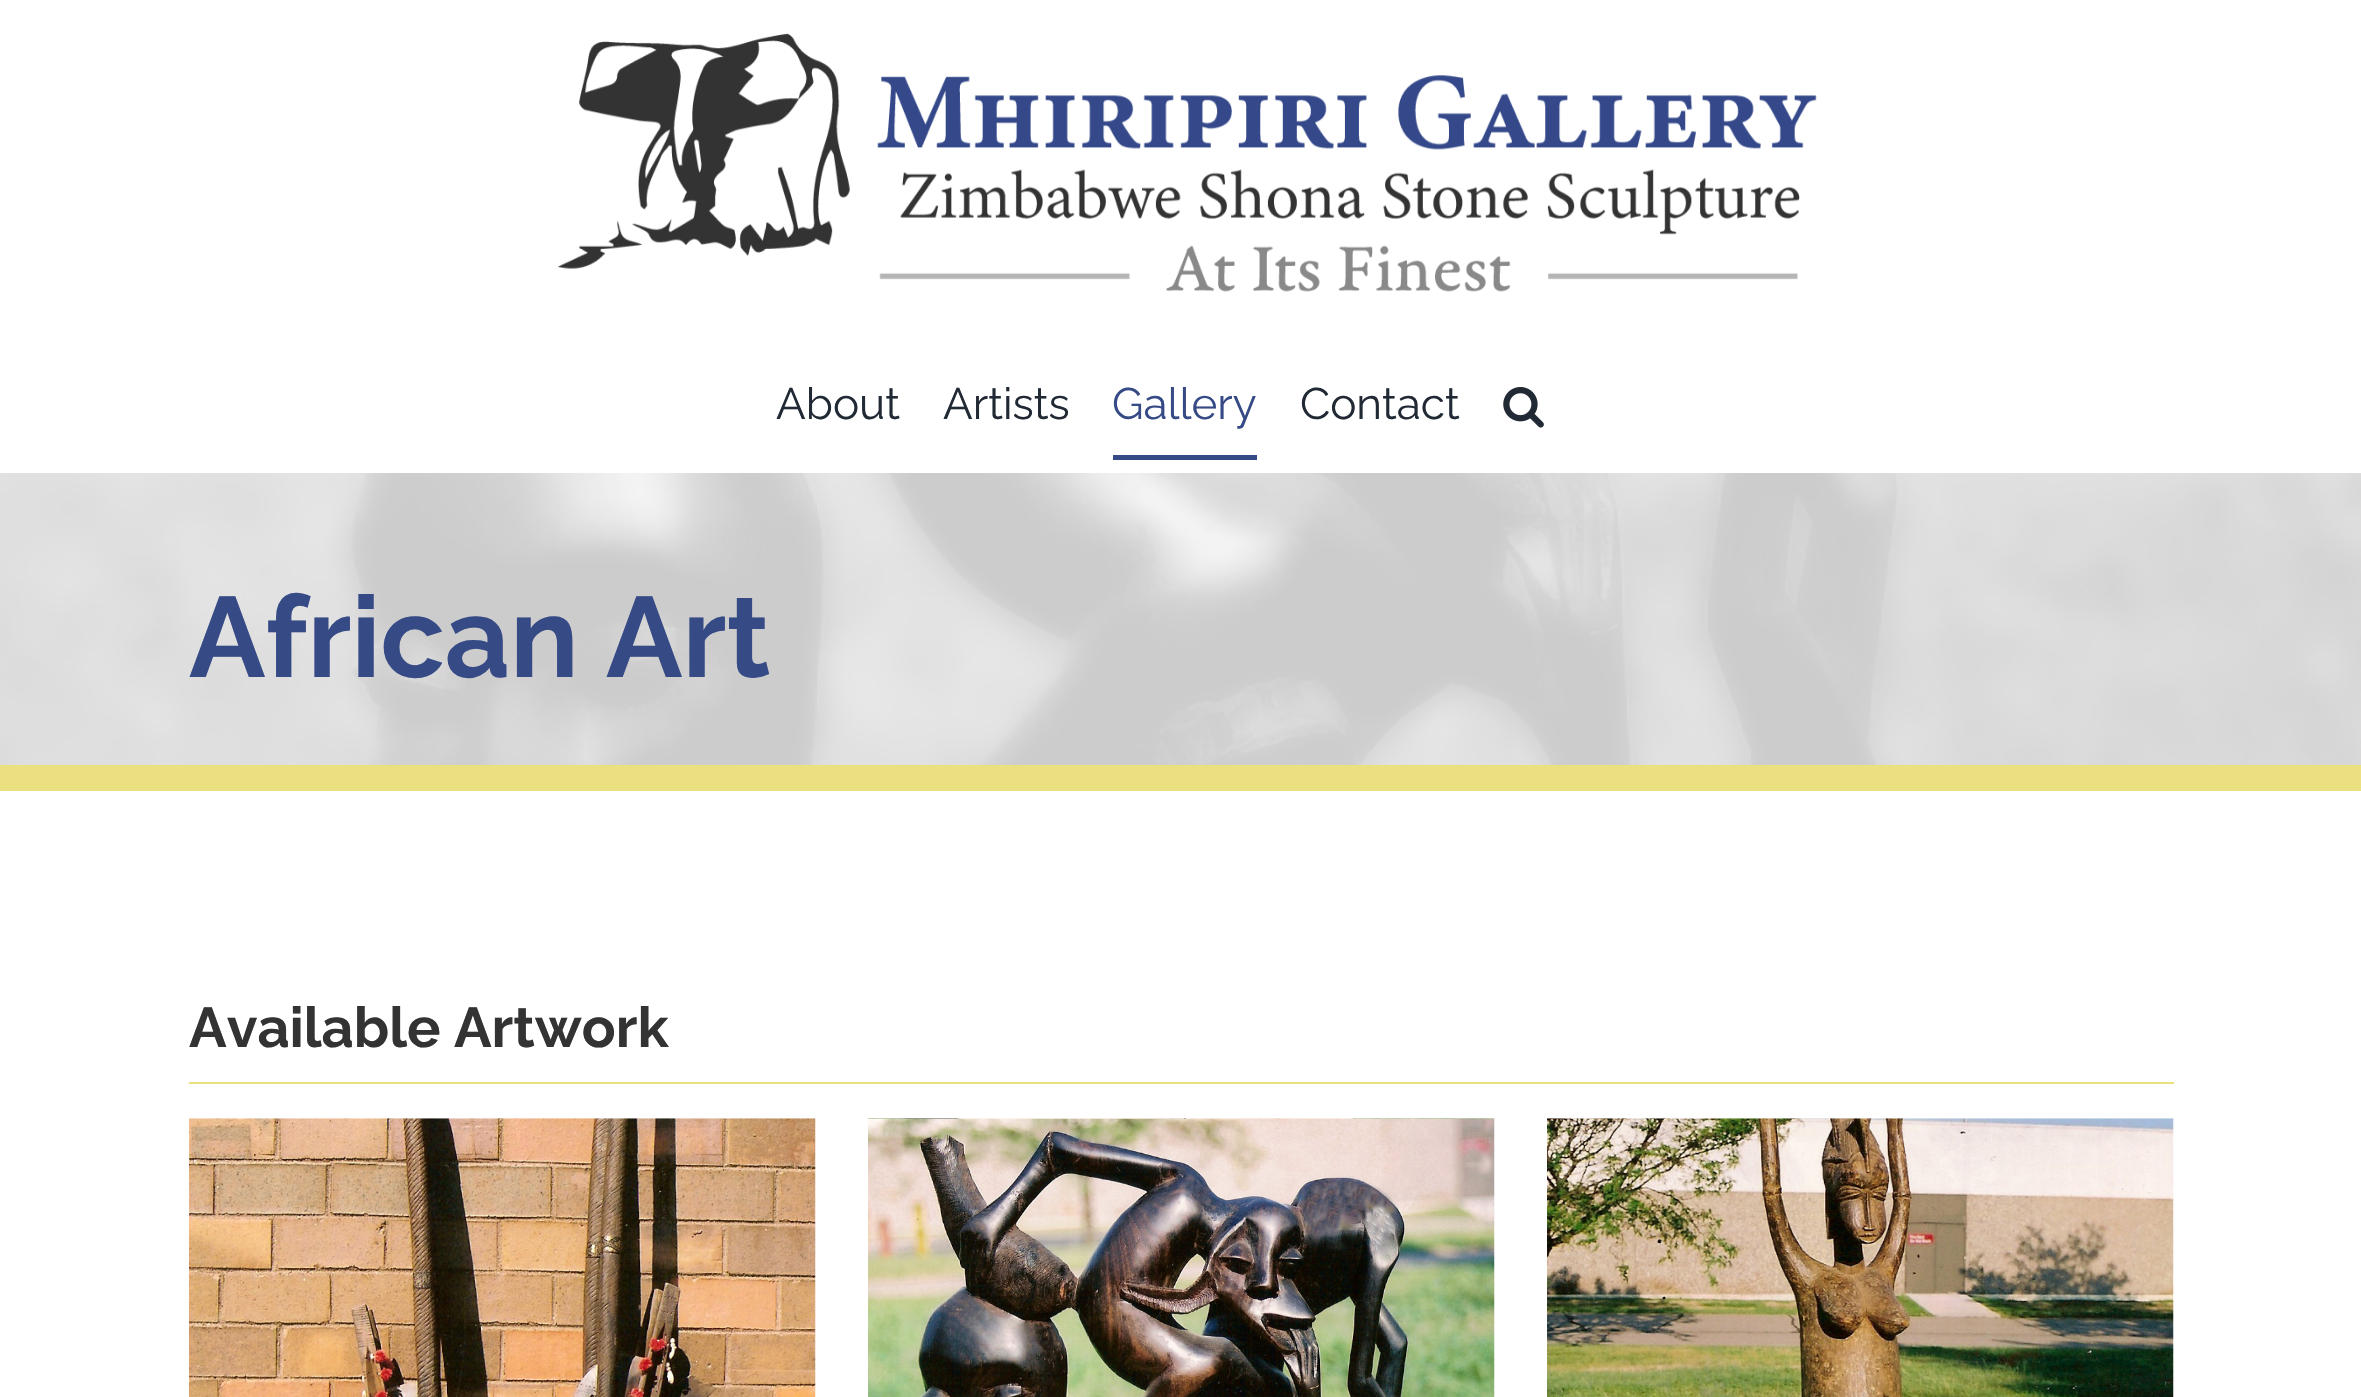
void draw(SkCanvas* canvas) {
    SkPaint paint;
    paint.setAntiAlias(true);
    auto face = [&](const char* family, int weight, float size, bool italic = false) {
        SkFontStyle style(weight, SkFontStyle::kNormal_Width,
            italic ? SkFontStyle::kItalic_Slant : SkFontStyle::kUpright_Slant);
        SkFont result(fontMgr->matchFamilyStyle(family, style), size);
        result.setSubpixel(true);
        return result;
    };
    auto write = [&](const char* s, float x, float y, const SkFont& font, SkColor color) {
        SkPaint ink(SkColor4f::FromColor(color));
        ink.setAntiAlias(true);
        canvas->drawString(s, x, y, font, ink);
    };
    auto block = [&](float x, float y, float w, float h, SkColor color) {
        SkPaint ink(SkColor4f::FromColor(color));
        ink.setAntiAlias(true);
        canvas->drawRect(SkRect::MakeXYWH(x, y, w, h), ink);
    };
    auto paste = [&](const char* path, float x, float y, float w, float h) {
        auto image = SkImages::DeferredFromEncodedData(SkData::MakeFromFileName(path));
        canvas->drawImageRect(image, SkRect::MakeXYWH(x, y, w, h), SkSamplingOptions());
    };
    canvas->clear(SK_ColorWHITE);
    paste("pic1.png", 558, 33, 1259, 259);
    auto kFont1 = face("Raleway", 400, 44);
    write("About", 776, 419, kFont1, SkColorSetRGB(33, 41, 52));
    write("Artists", 943, 419, kFont1, SkColorSetRGB(33, 41, 52));
    write("Gallery", 1112, 419, kFont1, SkColorSetRGB(54, 74, 134));
    block(1113, 455, 144, 5, SkColorSetRGB(54, 74, 134));
    write("Contact", 1300, 419, kFont1, SkColorSetRGB(33, 41, 52));
    paste("pic2.png", 1503, 387, 41, 41);
    paste("pic3.png", 0, 473, 2361, 292);
    block(0, 765, 2361, 26, SkColorSetRGB(234, 224, 127));
    auto kFont2 = face("Raleway", 700, 113.75f);
    write("African Art", 189, 677, kFont2, SkColorSetRGB(54, 74, 134));
    block(189, 1082, 1985, 2, SkColorSetRGB(234, 224, 126));
    auto kFont3 = face("Raleway", 700, 56);
    write("Available Artwork", 189, 1047, kFont3, SkColorSetRGB(51, 51, 51));
    paste("pic4.png", 189, 1118, 627, 279);
    paste("pic5.png", 868, 1118, 627, 279);
    paste("pic6.png", 1547, 1118, 627, 279);
}
